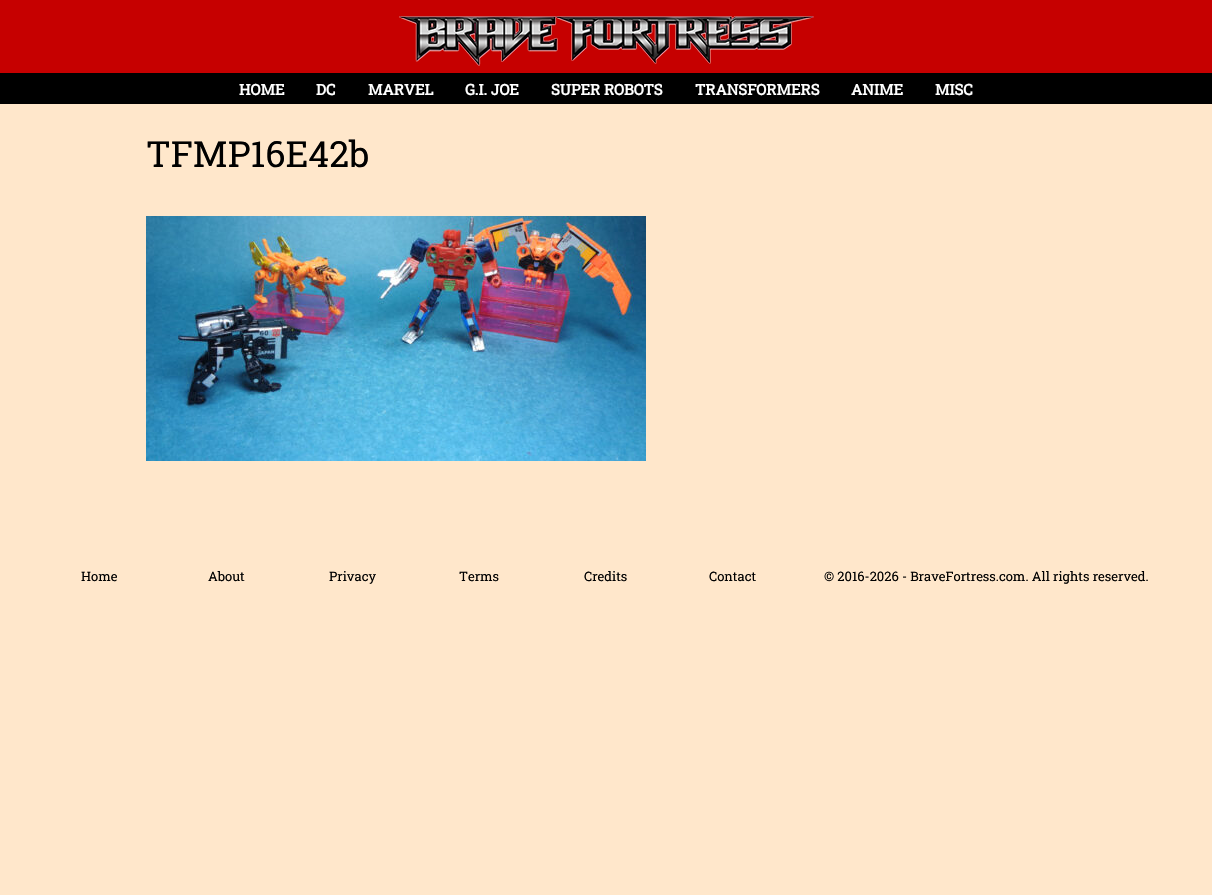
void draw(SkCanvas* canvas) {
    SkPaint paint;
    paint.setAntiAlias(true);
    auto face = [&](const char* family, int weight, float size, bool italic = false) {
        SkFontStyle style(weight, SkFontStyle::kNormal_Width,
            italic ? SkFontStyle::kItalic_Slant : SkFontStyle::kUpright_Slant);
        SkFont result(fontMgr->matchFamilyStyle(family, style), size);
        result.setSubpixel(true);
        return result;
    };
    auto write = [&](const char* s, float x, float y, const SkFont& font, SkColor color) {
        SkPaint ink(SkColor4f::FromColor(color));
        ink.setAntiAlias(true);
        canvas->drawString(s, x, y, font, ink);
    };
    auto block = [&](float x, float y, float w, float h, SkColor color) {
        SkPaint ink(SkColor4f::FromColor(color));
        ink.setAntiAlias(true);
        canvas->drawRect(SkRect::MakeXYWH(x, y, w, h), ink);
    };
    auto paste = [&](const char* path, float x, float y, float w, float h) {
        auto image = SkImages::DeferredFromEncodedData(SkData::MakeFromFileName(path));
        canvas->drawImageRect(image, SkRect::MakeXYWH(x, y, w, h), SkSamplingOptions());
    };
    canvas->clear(SkColorSetRGB(255, 231, 203));
    block(0, 0, 1212, 73, SkColorSetRGB(198, 0, 0));
    paste("pic1.png", 399, 16, 415, 50);
    block(0, 73, 1212, 31, SK_ColorBLACK);
    auto kFont1 = face("Roboto Slab", 700, 15);
    write("HOME", 239, 95, kFont1, SK_ColorWHITE);
    write("DC", 316, 95, kFont1, SK_ColorWHITE);
    write("MARVEL", 368, 95, kFont1, SK_ColorWHITE);
    write("G.I. JOE", 465, 95, kFont1, SK_ColorWHITE);
    write("SUPER ROBOTS", 551, 95, kFont1, SK_ColorWHITE);
    write("TRANSFORMERS", 695, 95, kFont1, SK_ColorWHITE);
    write("ANIME", 851, 95, kFont1, SK_ColorWHITE);
    write("MISC", 935, 95, kFont1, SK_ColorWHITE);
    auto kFont2 = face("Roboto Slab", 400, 36);
    write("TFMP16E42b", 146, 167, kFont2, SK_ColorBLACK);
    paste("pic2.png", 146, 216, 500, 245);
    auto kFont3 = face("Roboto Slab", 400, 13);
    write("Home", 81, 581, kFont3, SK_ColorBLACK);
    write("About", 208, 581, kFont3, SK_ColorBLACK);
    write("Privacy", 329, 581, kFont3, SK_ColorBLACK);
    write("Terms", 459, 581, kFont3, SK_ColorBLACK);
    write("Credits", 584, 581, kFont3, SK_ColorBLACK);
    write("Contact", 709, 581, kFont3, SK_ColorBLACK);
    write("© 2016-2026 - BraveFortress.com. All rights reserved.", 824, 581, kFont3, SK_ColorBLACK);
}
